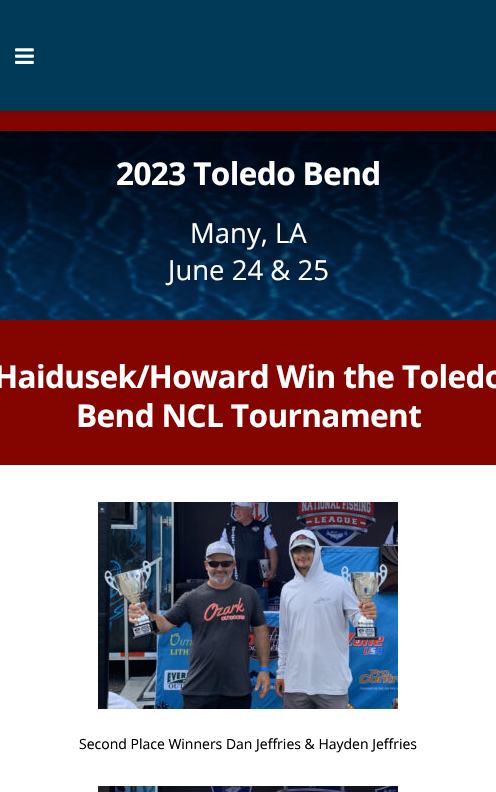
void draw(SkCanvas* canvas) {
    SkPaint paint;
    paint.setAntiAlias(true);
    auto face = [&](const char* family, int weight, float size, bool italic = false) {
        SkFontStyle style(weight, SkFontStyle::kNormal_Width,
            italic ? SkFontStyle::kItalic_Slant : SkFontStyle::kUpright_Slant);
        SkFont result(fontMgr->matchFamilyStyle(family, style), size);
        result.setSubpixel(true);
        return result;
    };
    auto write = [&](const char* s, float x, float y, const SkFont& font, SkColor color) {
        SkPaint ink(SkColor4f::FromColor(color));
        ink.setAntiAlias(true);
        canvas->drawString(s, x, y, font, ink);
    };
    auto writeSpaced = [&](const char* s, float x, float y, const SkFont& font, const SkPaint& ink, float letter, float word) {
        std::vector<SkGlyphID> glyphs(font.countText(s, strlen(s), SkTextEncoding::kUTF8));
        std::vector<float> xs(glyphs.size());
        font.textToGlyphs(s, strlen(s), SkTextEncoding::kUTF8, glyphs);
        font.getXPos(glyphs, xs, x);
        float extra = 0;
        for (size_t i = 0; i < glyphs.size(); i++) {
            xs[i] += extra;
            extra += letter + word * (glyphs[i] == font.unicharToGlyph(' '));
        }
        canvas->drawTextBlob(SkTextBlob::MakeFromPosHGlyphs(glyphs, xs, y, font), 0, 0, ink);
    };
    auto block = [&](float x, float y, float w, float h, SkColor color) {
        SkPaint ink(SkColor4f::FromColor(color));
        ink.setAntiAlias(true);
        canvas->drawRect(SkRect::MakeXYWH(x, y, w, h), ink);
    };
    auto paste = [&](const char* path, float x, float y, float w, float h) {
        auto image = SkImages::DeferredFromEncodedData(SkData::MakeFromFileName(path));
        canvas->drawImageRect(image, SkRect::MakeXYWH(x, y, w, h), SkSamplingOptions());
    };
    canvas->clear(SkColorSetRGB(132, 4, 0));
    paint.setColor(SkColorSetARGB(26, 0, 0, 0));
    paint.setMaskFilter(SkMaskFilter::MakeBlur(kNormal_SkBlurStyle, 3));
    canvas->drawRect(SkRect::MakeXYWH(0, 2, 496, 111), paint);
    paint.setMaskFilter(nullptr);
    block(0, 0, 496, 111, SkColorSetRGB(0, 58, 89));
    paste("pic1.png", 15, 48, 19, 16);
    paste("pic2.png", 0, 131, 496, 189);
    auto kFont1 = face("Open Sans", 700, 31.5f);
    paint.setColor(SK_ColorWHITE);
    writeSpaced("2023 Toledo Bend", 116, 185, kFont1, paint, -0.6f, 0);
    auto kFont2 = face("Open Sans", 400, 27.5f);
    write("Many, LA", 190, 243, kFont2, SK_ColorWHITE);
    write("June 24 & 25", 168, 280, kFont2, SK_ColorWHITE);
    writeSpaced("Haidusek/Howard Win the Toledo", -6, 388, kFont1, paint, -0.6f, 0);
    writeSpaced("Bend NCL Tournament", 76, 427, kFont1, paint, -0.6f, 0);
    block(0, 465, 496, 327, SK_ColorWHITE);
    paste("pic3.png", 98, 502, 300, 207);
    auto kFont3 = face("Open Sans", 400, 14);
    write("Second Place Winners Dan Jeffries & Hayden Jeffries", 79, 749, kFont3, SK_ColorBLACK);
    paste("pic4.png", 98, 786, 300, 6);
}
